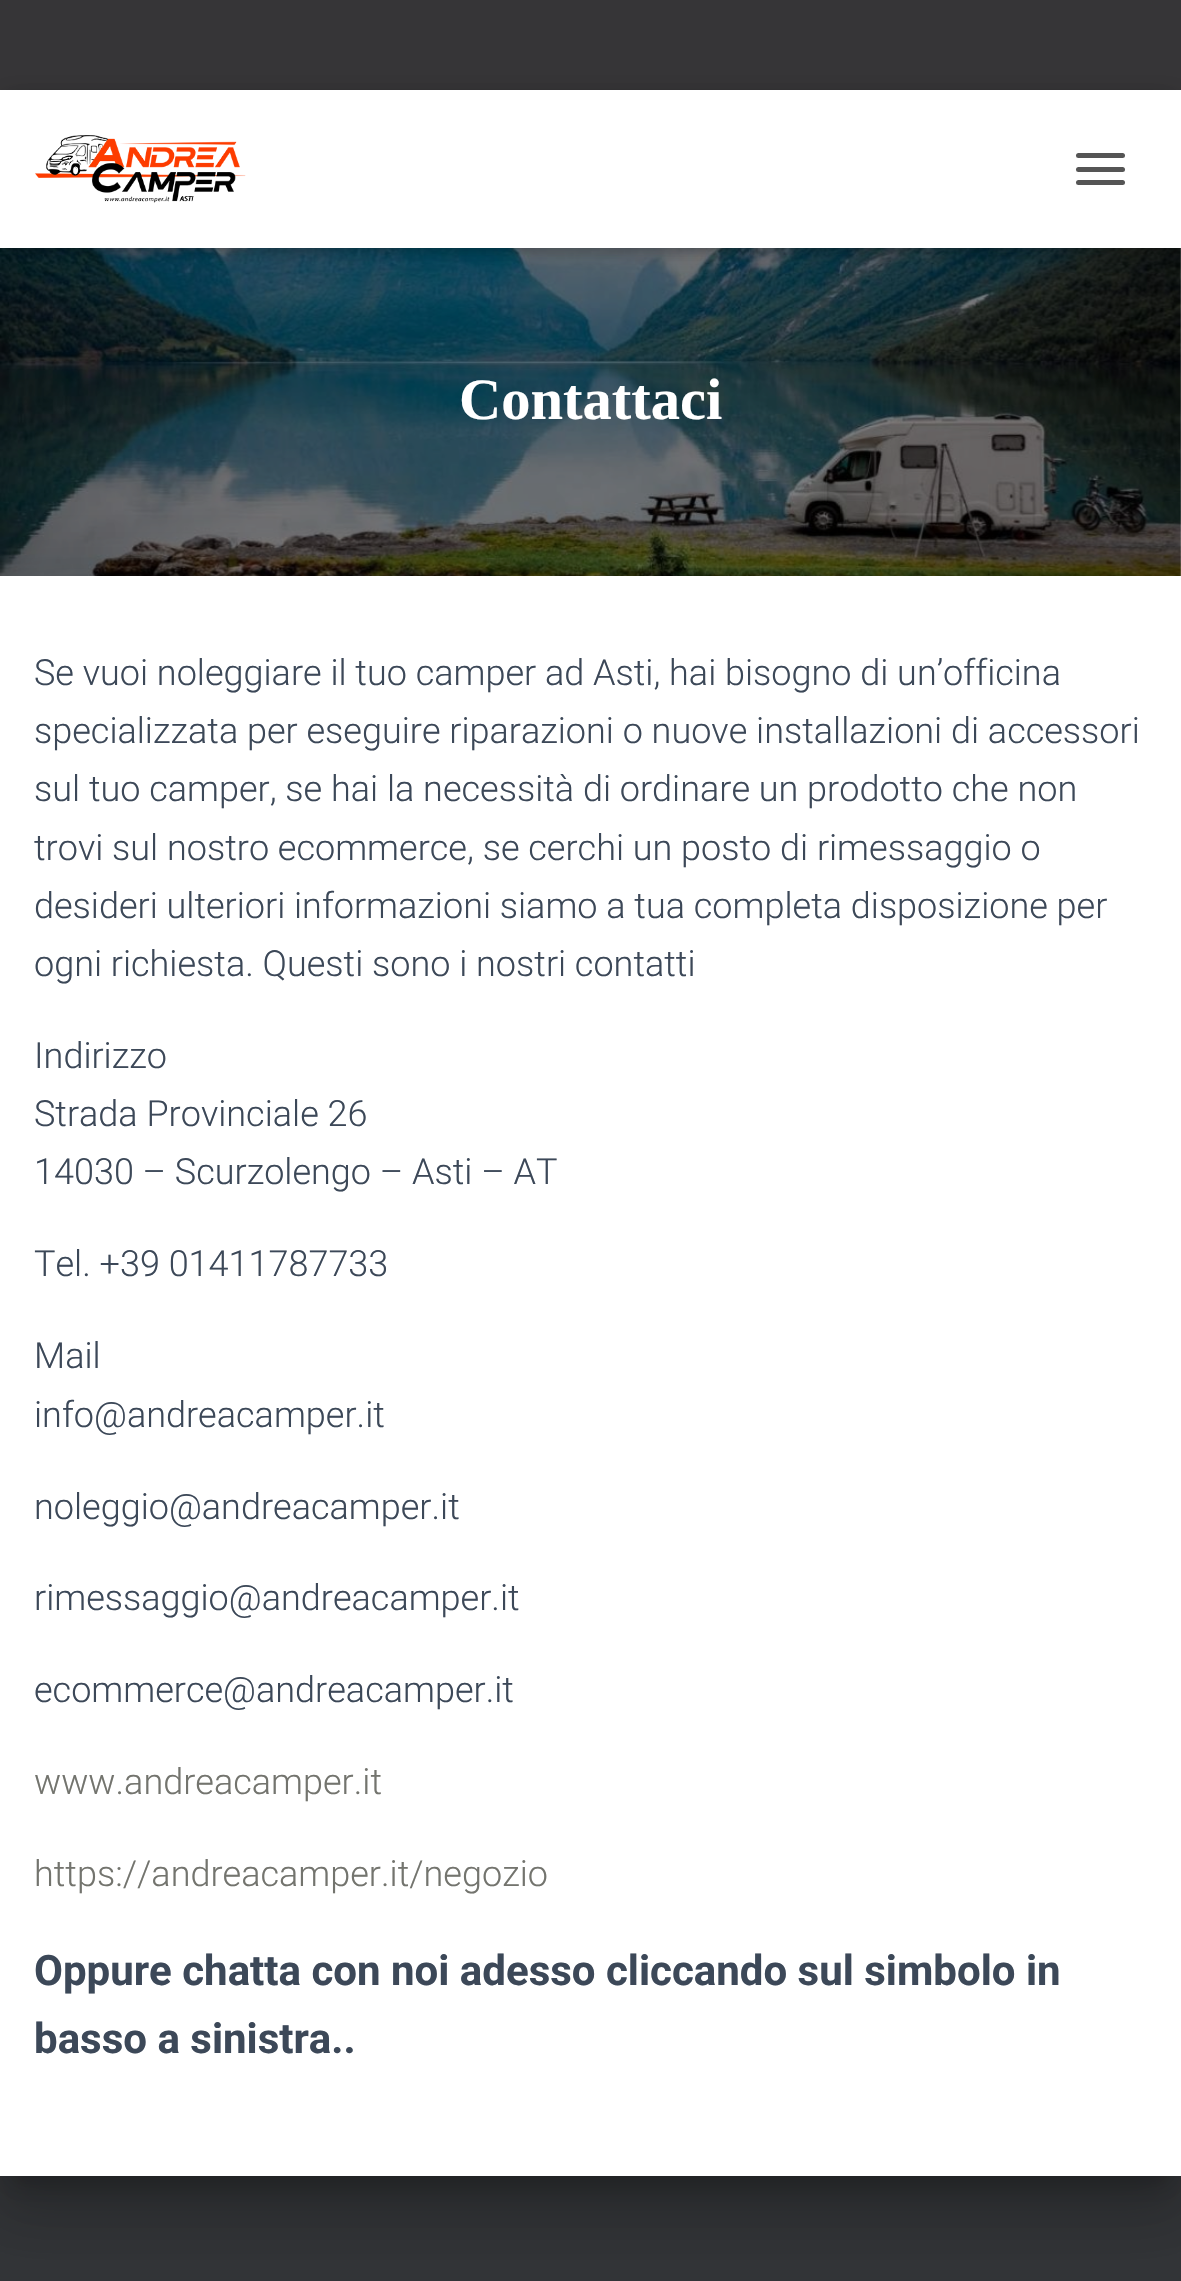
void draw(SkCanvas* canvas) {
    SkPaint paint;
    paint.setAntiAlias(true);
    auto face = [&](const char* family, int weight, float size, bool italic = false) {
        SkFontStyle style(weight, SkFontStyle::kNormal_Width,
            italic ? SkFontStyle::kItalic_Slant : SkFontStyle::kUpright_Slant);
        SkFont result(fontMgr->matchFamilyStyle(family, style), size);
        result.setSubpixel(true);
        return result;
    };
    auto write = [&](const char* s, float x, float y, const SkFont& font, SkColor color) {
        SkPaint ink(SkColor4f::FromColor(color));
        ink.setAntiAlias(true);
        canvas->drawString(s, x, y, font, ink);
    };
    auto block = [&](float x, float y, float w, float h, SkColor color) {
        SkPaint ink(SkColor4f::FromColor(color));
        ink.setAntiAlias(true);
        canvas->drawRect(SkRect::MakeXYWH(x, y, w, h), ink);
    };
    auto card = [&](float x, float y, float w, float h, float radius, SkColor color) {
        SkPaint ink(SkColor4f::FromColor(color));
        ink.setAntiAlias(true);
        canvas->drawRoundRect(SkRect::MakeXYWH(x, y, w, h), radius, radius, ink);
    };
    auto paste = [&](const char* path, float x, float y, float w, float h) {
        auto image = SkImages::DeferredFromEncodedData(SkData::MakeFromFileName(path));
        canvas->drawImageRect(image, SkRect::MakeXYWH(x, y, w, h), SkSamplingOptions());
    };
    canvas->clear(SK_ColorWHITE);
    block(0, 0, 1181, 90, SkColorSetRGB(54, 53, 55));
    paste("pic2.png", 0, 248, 1181, 328);
    paint.setColor(SkColorSetARGB(26, 0, 0, 0));
    paint.setMaskFilter(SkMaskFilter::MakeBlur(kNormal_SkBlurStyle, 5.5f));
    canvas->drawRect(SkRect::MakeXYWH(5, 104, 1172, 148), paint);
    paint.setMaskFilter(nullptr);
    paint.setColor(SkColorSetARGB(31, 0, 0, 0));
    paint.setMaskFilter(SkMaskFilter::MakeBlur(kNormal_SkBlurStyle, 11));
    canvas->drawRect(SkRect::MakeXYWH(0, 92, 1181, 158), paint);
    paint.setMaskFilter(nullptr);
    paint.setColor(SkColorSetARGB(107, 0, 0, 0));
    paint.setMaskFilter(SkMaskFilter::MakeBlur(kNormal_SkBlurStyle, 11));
    canvas->drawRect(SkRect::MakeXYWH(14, 106, 1154, 130), paint);
    paint.setMaskFilter(nullptr);
    block(0, 90, 1181, 158, SK_ColorWHITE);
    paste("pic1.png", 35, 135, 211, 68);
    card(1076, 153, 49, 5, 2.5f, SkColorSetRGB(85, 85, 85));
    card(1076, 167, 49, 5, 2.5f, SkColorSetRGB(85, 85, 85));
    card(1076, 180, 49, 5, 2.5f, SkColorSetRGB(85, 85, 85));
    auto kFont1 = face("Liberation Serif", 700, 58.5f);
    write("Contattaci", 459, 419, kFont1, SK_ColorWHITE);
    block(0, 2176, 1181, 105, SkColorSetRGB(50, 52, 55));
    paint.setColor(SkColorSetARGB(51, 0, 0, 0));
    paint.setMaskFilter(SkMaskFilter::MakeBlur(kNormal_SkBlurStyle, 11));
    canvas->drawRect(SkRect::MakeXYWH(11, 605, 1159, 1578), paint);
    paint.setMaskFilter(nullptr);
    paint.setColor(SkColorSetARGB(31, 0, 0, 0));
    paint.setMaskFilter(SkMaskFilter::MakeBlur(kNormal_SkBlurStyle, 34));
    canvas->drawRect(SkRect::MakeXYWH(-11, 578, 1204, 1623), paint);
    paint.setMaskFilter(nullptr);
    paint.setColor(SkColorSetARGB(36, 0, 0, 0));
    paint.setMaskFilter(SkMaskFilter::MakeBlur(kNormal_SkBlurStyle, 27));
    canvas->drawRect(SkRect::MakeXYWH(-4, 608, 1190, 1608), paint);
    paint.setMaskFilter(nullptr);
    block(0, 576, 1181, 1600, SK_ColorWHITE);
    auto kFont2 = face("Roboto", 300, 36);
    write("Se vuoi noleggiare il tuo camper ad Asti, hai bisogno di un’officina", 34, 685, kFont2, SkColorSetRGB(60, 72, 88));
    write("specializzata per eseguire riparazioni o nuove installazioni di accessori", 34, 743, kFont2, SkColorSetRGB(60, 72, 88));
    write("sul tuo camper, se hai la necessità di ordinare un prodotto che non", 34, 801, kFont2, SkColorSetRGB(60, 72, 88));
    write("trovi sul nostro ecommerce, se cerchi un posto di rimessaggio o", 34, 860, kFont2, SkColorSetRGB(60, 72, 88));
    write("desideri ulteriori informazioni siamo a tua completa disposizione per", 34, 918, kFont2, SkColorSetRGB(60, 72, 88));
    write("ogni richiesta. Questi sono i nostri contatti", 34, 976, kFont2, SkColorSetRGB(60, 72, 88));
    write("Indirizzo", 34, 1068, kFont2, SkColorSetRGB(60, 72, 88));
    write("Strada Provinciale 26", 34, 1126, kFont2, SkColorSetRGB(60, 72, 88));
    write("14030 – Scurzolengo – Asti – AT", 34, 1184, kFont2, SkColorSetRGB(60, 72, 88));
    write("Tel. +39 01411787733", 34, 1276, kFont2, SkColorSetRGB(60, 72, 88));
    write("Mail", 34, 1368, kFont2, SkColorSetRGB(60, 72, 88));
    write("info@andreacamper.it", 34, 1427, kFont2, SkColorSetRGB(60, 72, 88));
    write("noleggio@andreacamper.it", 34, 1519, kFont2, SkColorSetRGB(60, 72, 88));
    write("rimessaggio@andreacamper.it", 34, 1610, kFont2, SkColorSetRGB(60, 72, 88));
    write("ecommerce@andreacamper.it", 34, 1702, kFont2, SkColorSetRGB(60, 72, 88));
    write("www.andreacamper.it", 34, 1794, kFont2, SkColorSetRGB(115, 116, 110));
    write("https://andreacamper.it/negozio", 34, 1886, kFont2, SkColorSetRGB(115, 116, 110));
    auto kFont3 = face("Roboto", 700, 42);
    write("Oppure chatta con noi adesso cliccando sul simbolo in", 34, 1985, kFont3, SkColorSetRGB(60, 72, 88));
    write("basso a sinistra..", 34, 2053, kFont3, SkColorSetRGB(60, 72, 88));
}
